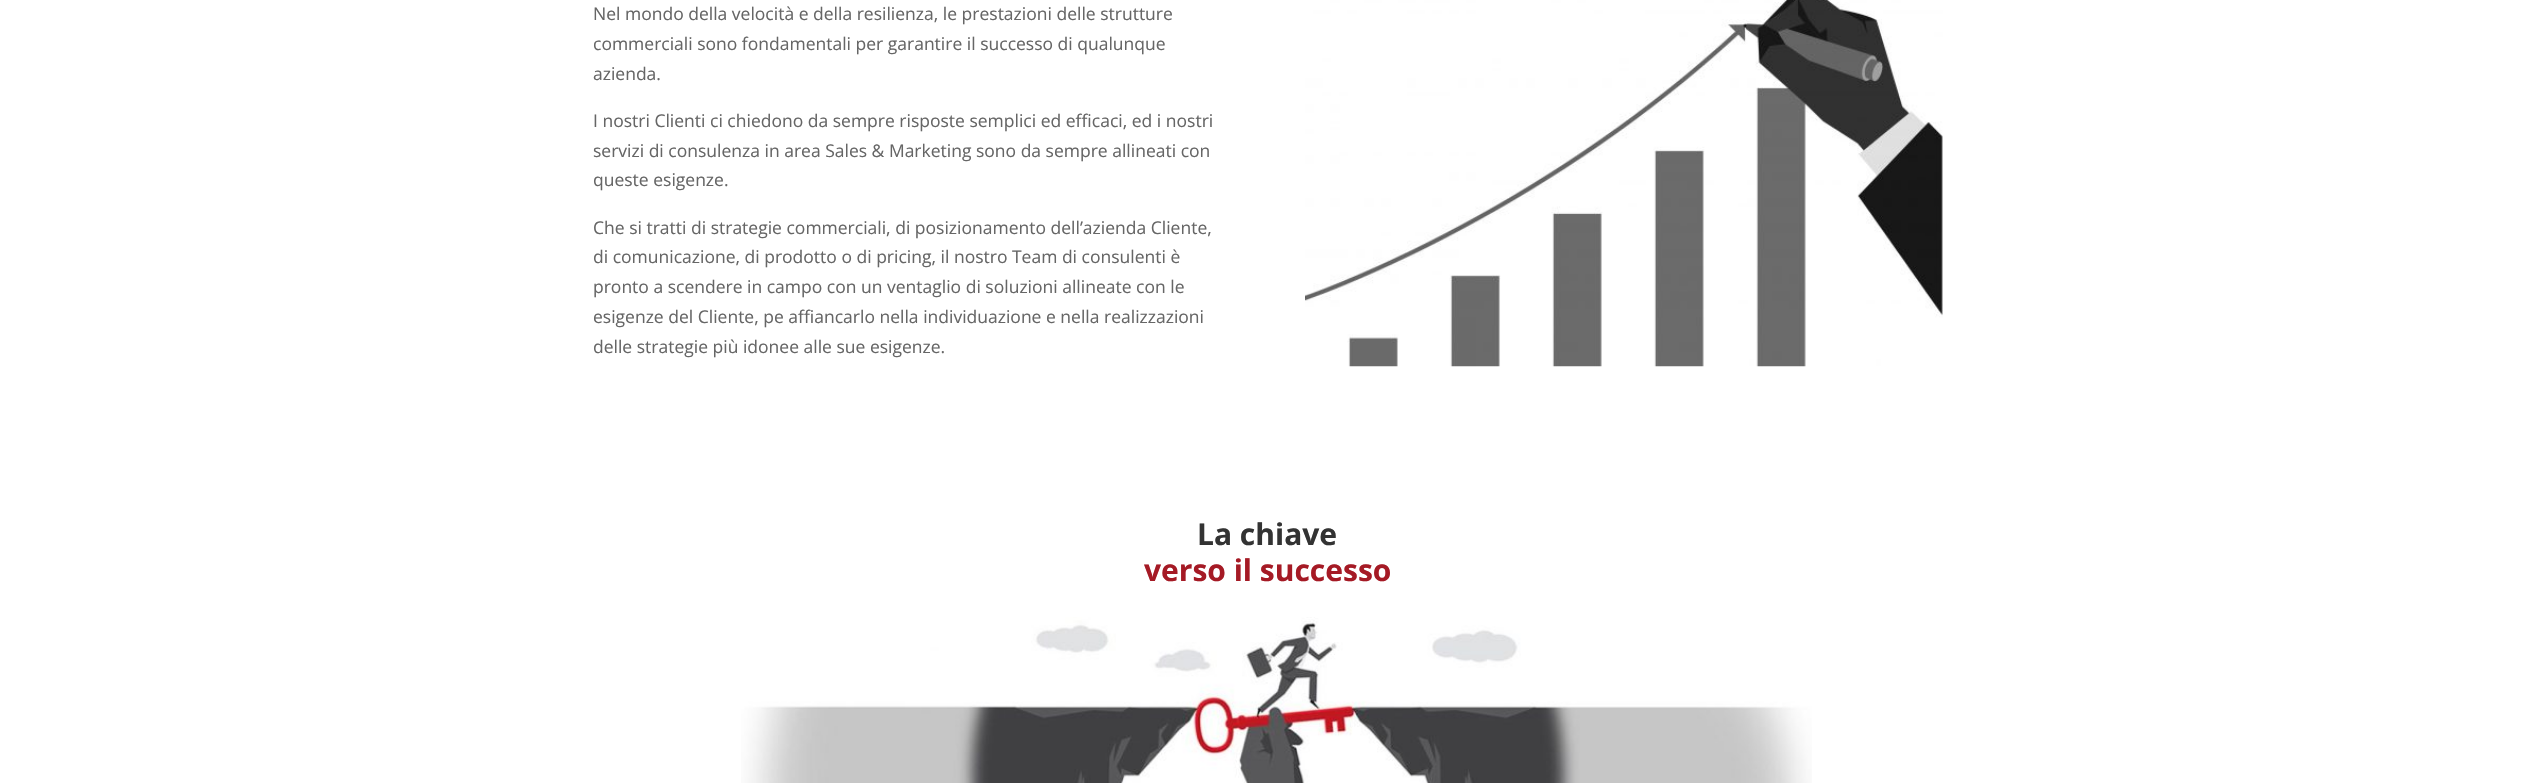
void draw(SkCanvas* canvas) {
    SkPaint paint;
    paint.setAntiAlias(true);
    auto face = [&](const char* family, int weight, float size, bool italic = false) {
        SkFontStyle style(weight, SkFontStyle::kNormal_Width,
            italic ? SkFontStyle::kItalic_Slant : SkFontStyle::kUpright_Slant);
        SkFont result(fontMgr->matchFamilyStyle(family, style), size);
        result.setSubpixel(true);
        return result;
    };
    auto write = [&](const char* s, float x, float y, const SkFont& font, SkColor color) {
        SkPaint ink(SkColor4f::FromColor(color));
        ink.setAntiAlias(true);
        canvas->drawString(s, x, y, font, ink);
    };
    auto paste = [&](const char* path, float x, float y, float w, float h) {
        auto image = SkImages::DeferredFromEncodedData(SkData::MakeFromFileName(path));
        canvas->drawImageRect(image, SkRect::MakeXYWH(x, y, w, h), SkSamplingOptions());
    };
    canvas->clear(SK_ColorWHITE);
    auto kFont1 = face("Open Sans", 400, 17.5f);
    write("Nel mondo della velocità e della resilienza, le prestazioni delle strutture", 593, 20, kFont1, SkColorSetRGB(102, 102, 102));
    write("commerciali sono fondamentali per garantire il successo di qualunque", 593, 50, kFont1, SkColorSetRGB(102, 102, 102));
    write("azienda.", 593, 80, kFont1, SkColorSetRGB(102, 102, 102));
    write("I nostri Clienti ci chiedono da sempre risposte semplici ed efficaci, ed i nostri", 593, 127, kFont1, SkColorSetRGB(102, 102, 102));
    write("servizi di consulenza in area Sales & Marketing sono da sempre allineati con", 593, 157, kFont1, SkColorSetRGB(102, 102, 102));
    write("queste esigenze.", 593, 186, kFont1, SkColorSetRGB(102, 102, 102));
    write("Che si tratti di strategie commerciali, di posizionamento dell’azienda Cliente,", 593, 234, kFont1, SkColorSetRGB(102, 102, 102));
    write("di comunicazione, di prodotto o di pricing, il nostro Team di consulenti è", 593, 263, kFont1, SkColorSetRGB(102, 102, 102));
    write("pronto a scendere in campo con un ventaglio di soluzioni allineate con le", 593, 293, kFont1, SkColorSetRGB(102, 102, 102));
    write("esigenze del Cliente, pe affiancarlo nella individuazione e nella realizzazioni", 593, 323, kFont1, SkColorSetRGB(102, 102, 102));
    write("delle strategie più idonee alle sue esigenze.", 593, 353, kFont1, SkColorSetRGB(102, 102, 102));
    paste("pic1.png", 1305, 0, 638, 367);
    auto kFont2 = face("Open Sans", 700, 30);
    write("La chiave", 1197, 545, kFont2, SkColorSetRGB(51, 51, 51));
    write("verso il successo", 1144, 581, kFont2, SkColorSetRGB(165, 26, 37));
    paste("pic2.png", 741, 617, 1071, 166);
}
